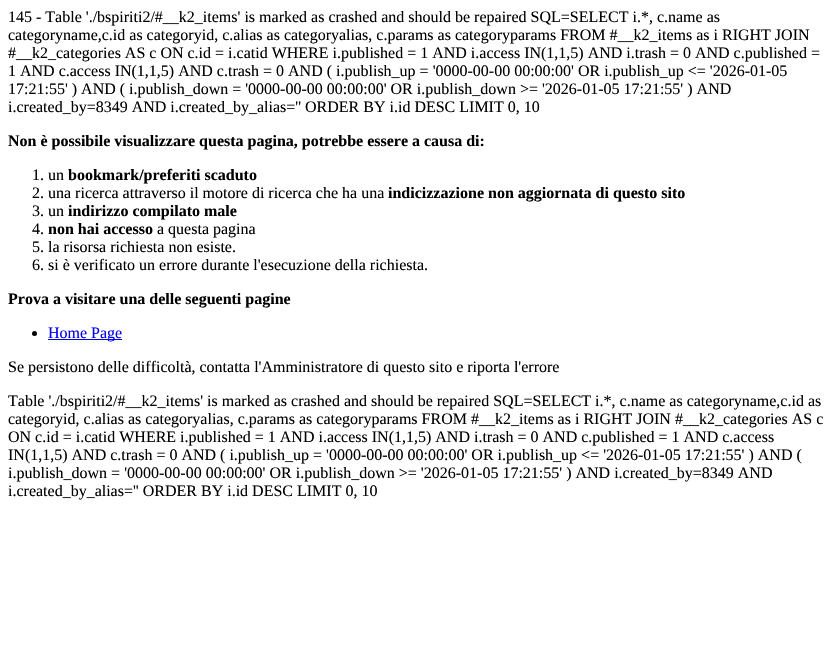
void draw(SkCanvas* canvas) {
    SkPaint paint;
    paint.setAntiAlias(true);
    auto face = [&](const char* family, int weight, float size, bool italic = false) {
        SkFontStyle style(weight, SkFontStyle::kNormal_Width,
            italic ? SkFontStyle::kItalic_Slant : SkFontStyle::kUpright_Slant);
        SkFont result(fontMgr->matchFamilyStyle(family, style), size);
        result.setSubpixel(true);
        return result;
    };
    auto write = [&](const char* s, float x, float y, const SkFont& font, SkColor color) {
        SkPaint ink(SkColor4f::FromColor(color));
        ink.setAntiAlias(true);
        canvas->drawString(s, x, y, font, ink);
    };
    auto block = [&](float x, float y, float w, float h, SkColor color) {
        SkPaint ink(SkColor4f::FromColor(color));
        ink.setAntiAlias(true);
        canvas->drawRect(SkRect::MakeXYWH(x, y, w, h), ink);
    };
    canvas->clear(SK_ColorWHITE);
    auto kFont1 = face("Liberation Serif", 400, 16);
    write("145 - Table './bspiriti2/#__k2_items' is marked as crashed and should be repaired SQL=SELECT i.*, c.name as", 8, 22, kFont1, SK_ColorBLACK);
    write("categoryname,c.id as categoryid, c.alias as categoryalias, c.params as categoryparams FROM #__k2_items as i RIGHT JOIN", 8, 40, kFont1, SK_ColorBLACK);
    write("#__k2_categories AS c ON c.id = i.catid WHERE i.published = 1 AND i.access IN(1,1,5) AND i.trash = 0 AND c.published =", 8, 58, kFont1, SK_ColorBLACK);
    write("1 AND c.access IN(1,1,5) AND c.trash = 0 AND ( i.publish_up = '0000-00-00 00:00:00' OR i.publish_up <= '2026-01-05", 8, 76, kFont1, SK_ColorBLACK);
    write("17:21:55' ) AND ( i.publish_down = '0000-00-00 00:00:00' OR i.publish_down >= '2026-01-05 17:21:55' ) AND", 8, 94, kFont1, SK_ColorBLACK);
    write("i.created_by=8349 AND i.created_by_alias='' ORDER BY i.id DESC LIMIT 0, 10", 8, 112, kFont1, SK_ColorBLACK);
    auto kFont2 = face("Liberation Serif", 700, 16);
    write("Non è possibile visualizzare questa pagina, potrebbe essere a causa di:", 8, 146, kFont2, SK_ColorBLACK);
    write("1. un", 32, 180, kFont1, SK_ColorBLACK);
    write("bookmark/preferiti scaduto", 68, 180, kFont2, SK_ColorBLACK);
    write("2. una ricerca attraverso il motore di ricerca che ha una", 32, 198, kFont1, SK_ColorBLACK);
    write("indicizzazione non aggiornata di questo sito", 388, 198, kFont2, SK_ColorBLACK);
    write("3. un", 32, 216, kFont1, SK_ColorBLACK);
    write("indirizzo compilato male", 68, 216, kFont2, SK_ColorBLACK);
    write("4.", 32, 234, kFont1, SK_ColorBLACK);
    write("non hai accesso", 48, 234, kFont2, SK_ColorBLACK);
    write("a questa pagina", 157, 234, kFont1, SK_ColorBLACK);
    write("5. la risorsa richiesta non esiste.", 32, 252, kFont1, SK_ColorBLACK);
    write("6. si è verificato un errore durante l'esecuzione della richiesta.", 32, 270, kFont1, SK_ColorBLACK);
    write("Prova a visitare una delle seguenti pagine", 8, 304, kFont2, SK_ColorBLACK);
    paint.setColor(SK_ColorBLACK);
    canvas->drawCircle(34.5f, 333.5f, 2.5f, paint);
    block(48, 339, 74, 1, SkColorSetRGB(0, 0, 238));
    write("Home Page", 48, 338, kFont1, SkColorSetRGB(0, 0, 238));
    write("Se persistono delle difficoltà, contatta l'Amministratore di questo sito e riporta l'errore", 8, 372, kFont1, SK_ColorBLACK);
    write("Table './bspiriti2/#__k2_items' is marked as crashed and should be repaired SQL=SELECT i.*, c.name as categoryname,c.id as", 8, 406, kFont1, SK_ColorBLACK);
    write("categoryid, c.alias as categoryalias, c.params as categoryparams FROM #__k2_items as i RIGHT JOIN #__k2_categories AS c", 8, 424, kFont1, SK_ColorBLACK);
    write("ON c.id = i.catid WHERE i.published = 1 AND i.access IN(1,1,5) AND i.trash = 0 AND c.published = 1 AND c.access", 8, 442, kFont1, SK_ColorBLACK);
    write("IN(1,1,5) AND c.trash = 0 AND ( i.publish_up = '0000-00-00 00:00:00' OR i.publish_up <= '2026-01-05 17:21:55' ) AND (", 8, 460, kFont1, SK_ColorBLACK);
    write("i.publish_down = '0000-00-00 00:00:00' OR i.publish_down >= '2026-01-05 17:21:55' ) AND i.created_by=8349 AND", 8, 478, kFont1, SK_ColorBLACK);
    write("i.created_by_alias='' ORDER BY i.id DESC LIMIT 0, 10", 8, 496, kFont1, SK_ColorBLACK);
}
